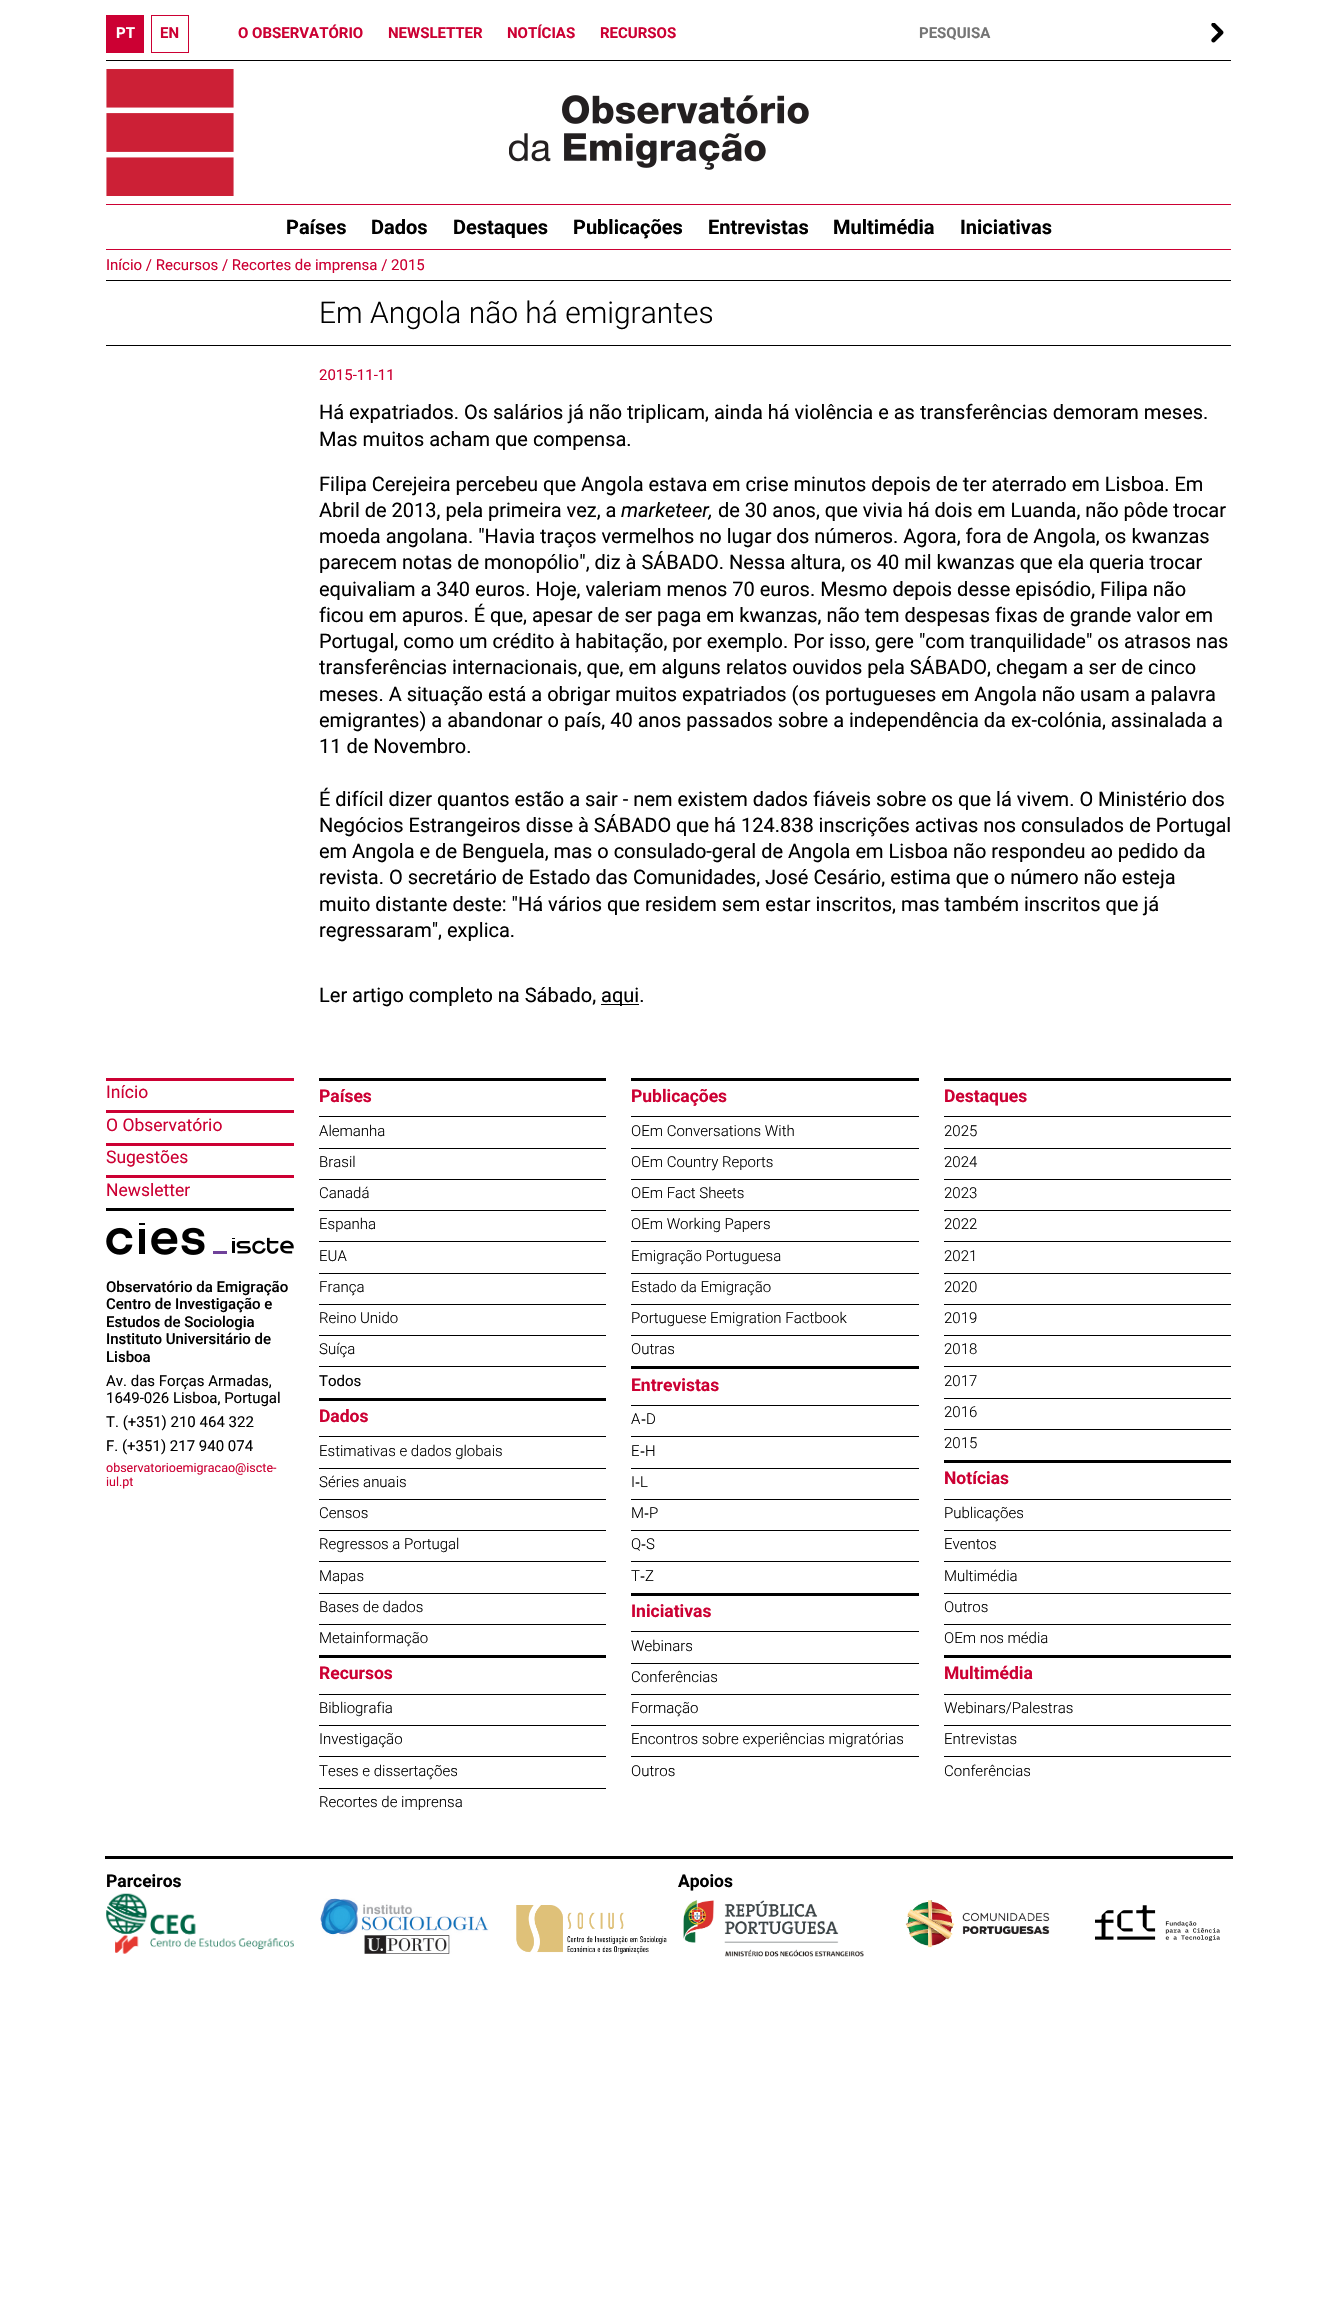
void draw(SkCanvas* canvas) {
    SkPaint paint;
    paint.setAntiAlias(true);
    auto face = [&](const char* family, int weight, float size, bool italic = false) {
        SkFontStyle style(weight, SkFontStyle::kNormal_Width,
            italic ? SkFontStyle::kItalic_Slant : SkFontStyle::kUpright_Slant);
        SkFont result(fontMgr->matchFamilyStyle(family, style), size);
        result.setSubpixel(true);
        return result;
    };
    auto write = [&](const char* s, float x, float y, const SkFont& font, SkColor color) {
        SkPaint ink(SkColor4f::FromColor(color));
        ink.setAntiAlias(true);
        canvas->drawString(s, x, y, font, ink);
    };
    auto block = [&](float x, float y, float w, float h, SkColor color) {
        SkPaint ink(SkColor4f::FromColor(color));
        ink.setAntiAlias(true);
        canvas->drawRect(SkRect::MakeXYWH(x, y, w, h), ink);
    };
    auto paste = [&](const char* path, float x, float y, float w, float h) {
        auto image = SkImages::DeferredFromEncodedData(SkData::MakeFromFileName(path));
        canvas->drawImageRect(image, SkRect::MakeXYWH(x, y, w, h), SkSamplingOptions());
    };
    canvas->clear(SK_ColorWHITE);
    block(106, 60, 1125, 1, SK_ColorBLACK);
    block(106, 15, 38, 38, SkColorSetRGB(204, 0, 51));
    auto kFont1 = face("Roboto", 700, 15);
    write("PT", 116, 38, kFont1, SK_ColorWHITE);
    paint.setStyle(SkPaint::kStroke_Style);
    paint.setStrokeWidth(1);
    paint.setColor(SkColorSetRGB(204, 0, 51));
    canvas->drawRect(SkRect::MakeXYWH(151.5f, 15.5f, 37, 37), paint);
    write("EN", 160, 38, kFont1, SkColorSetRGB(204, 0, 51));
    write("O OBSERVATÓRIO", 238, 38, kFont1, SkColorSetRGB(204, 0, 51));
    write("NEWSLETTER", 388, 38, kFont1, SkColorSetRGB(204, 0, 51));
    write("NOTÍCIAS", 507, 38, kFont1, SkColorSetRGB(204, 0, 51));
    write("RECURSOS", 600, 38, kFont1, SkColorSetRGB(204, 0, 51));
    write("PESQUISA", 919, 38, kFont1, SkColorSetRGB(117, 117, 117));
    paste("pic1.png", 1211, 23, 13, 20);
    paste("pic2.png", 106, 69, 128, 127);
    paste("pic3.png", 509, 95, 300, 75);
    block(106, 204, 1125, 1, SkColorSetRGB(204, 0, 51));
    block(106, 249, 1125, 1, SkColorSetRGB(204, 0, 51));
    auto kFont2 = face("Roboto", 700, 20);
    write("Países", 286, 234, kFont2, SK_ColorBLACK);
    write("Dados", 371, 234, kFont2, SK_ColorBLACK);
    write("Destaques", 453, 234, kFont2, SK_ColorBLACK);
    write("Publicações", 573, 234, kFont2, SK_ColorBLACK);
    write("Entrevistas", 708, 234, kFont2, SK_ColorBLACK);
    write("Multimédia", 833, 234, kFont2, SK_ColorBLACK);
    write("Iniciativas", 960, 234, kFont2, SK_ColorBLACK);
    block(106, 280, 1125, 1, SK_ColorBLACK);
    auto kFont3 = face("Roboto", 400, 15);
    write("Início / Recursos / Recortes de imprensa / 2015", 106, 270, kFont3, SkColorSetRGB(204, 0, 51));
    block(106, 345, 1125, 1, SK_ColorBLACK);
    auto kFont4 = face("Roboto", 300, 30);
    write("Em Angola não há emigrantes", 319, 323, kFont4, SK_ColorBLACK);
    auto kFont5 = face("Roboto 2", 400, 15);
    write("2015-11-11", 319, 380, kFont5, SkColorSetRGB(204, 0, 51));
    auto kFont6 = face("Roboto 2", 400, 20);
    write("Há expatriados. Os salários já não triplicam, ainda há violência e as transferências demoram meses.", 319, 419, kFont6, SK_ColorBLACK);
    write("Mas muitos acham que compensa.", 319, 446, kFont6, SK_ColorBLACK);
    auto kFont7 = face("Roboto", 400, 20);
    write("Filipa Cerejeira percebeu que Angola estava em crise minutos depois de ter aterrado em Lisboa. Em", 319, 491, kFont7, SK_ColorBLACK);
    write("Abril de 2013, pela primeira vez, a", 319, 517, kFont7, SK_ColorBLACK);
    auto kFont8 = face("Roboto", 400, 20, true);
    write("marketeer,", 621, 517, kFont8, SK_ColorBLACK);
    write("de 30 anos, que vivia há dois em Luanda, não pôde trocar", 718, 517, kFont7, SK_ColorBLACK);
    write("moeda angolana. \"Havia traços vermelhos no lugar dos números. Agora, fora de Angola, os kwanzas", 319, 543, kFont7, SK_ColorBLACK);
    write("parecem notas de monopólio\", diz à SÁBADO. Nessa altura, os 40 mil kwanzas que ela queria trocar", 319, 569, kFont7, SK_ColorBLACK);
    write("equivaliam a 340 euros. Hoje, valeriam menos 70 euros. Mesmo depois desse episódio, Filipa não", 319, 596, kFont7, SK_ColorBLACK);
    write("ficou em apuros. É que, apesar de ser paga em kwanzas, não tem despesas fixas de grande valor em", 319, 622, kFont7, SK_ColorBLACK);
    write("Portugal, como um crédito à habitação, por exemplo. Por isso, gere \"com tranquilidade\" os atrasos nas", 319, 648, kFont7, SK_ColorBLACK);
    write("transferências internacionais, que, em alguns relatos ouvidos pela SÁBADO, chegam a ser de cinco", 319, 674, kFont7, SK_ColorBLACK);
    write("meses. A situação está a obrigar muitos expatriados (os portugueses em Angola não usam a palavra", 319, 701, kFont7, SK_ColorBLACK);
    write("emigrantes) a abandonar o país, 40 anos passados sobre a independência da ex-colónia, assinalada a", 319, 727, kFont7, SK_ColorBLACK);
    write("11 de Novembro.", 319, 753, kFont7, SK_ColorBLACK);
    write("É difícil dizer quantos estão a sair - nem existem dados fiáveis sobre os que lá vivem. O Ministério dos", 319, 806, kFont7, SK_ColorBLACK);
    write("Negócios Estrangeiros disse à SÁBADO que há 124.838 inscrições activas nos consulados de Portugal", 319, 832, kFont7, SK_ColorBLACK);
    write("em Angola e de Benguela, mas o consulado-geral de Angola em Lisboa não respondeu ao pedido da", 319, 858, kFont7, SK_ColorBLACK);
    write("revista. O secretário de Estado das Comunidades, José Cesário, estima que o número não esteja", 319, 884, kFont7, SK_ColorBLACK);
    write("muito distante deste: \"Há vários que residem sem estar inscritos, mas também inscritos que já", 319, 911, kFont7, SK_ColorBLACK);
    write("regressaram\", explica.", 319, 937, kFont7, SK_ColorBLACK);
    write("Ler artigo completo na Sábado,", 319, 1002, kFont7, SK_ColorBLACK);
    block(601, 1004, 38, 1, SK_ColorBLACK);
    write("aqui.", 601, 1002, kFont7, SK_ColorBLACK);
    block(106, 1078, 188, 3, SkColorSetRGB(204, 0, 51));
    auto kFont9 = face("Roboto", 400, 17.5f);
    write("Início", 106, 1098, kFont9, SkColorSetRGB(204, 0, 51));
    block(106, 1110, 188, 3, SkColorSetRGB(204, 0, 51));
    write("O Observatório", 106, 1131, kFont9, SkColorSetRGB(204, 0, 51));
    block(106, 1143, 188, 3, SkColorSetRGB(204, 0, 51));
    write("Sugestões", 106, 1163, kFont9, SkColorSetRGB(204, 0, 51));
    block(106, 1175, 188, 3, SkColorSetRGB(204, 0, 51));
    write("Newsletter", 106, 1196, kFont9, SkColorSetRGB(204, 0, 51));
    block(106, 1208, 188, 3, SK_ColorBLACK);
    paste("pic4.png", 106, 1223, 188, 32);
    auto kFont10 = face("Roboto", 500, 15);
    write("Observatório da Emigração", 106, 1292, kFont10, SK_ColorBLACK);
    write("Centro de Investigação e", 106, 1309, kFont10, SK_ColorBLACK);
    write("Estudos de Sociologia", 106, 1327, kFont10, SK_ColorBLACK);
    write("Instituto Universitário de", 106, 1344, kFont10, SK_ColorBLACK);
    write("Lisboa", 106, 1362, kFont10, SK_ColorBLACK);
    write("Av. das Forças Armadas,", 106, 1386, kFont3, SK_ColorBLACK);
    write("1649-026 Lisboa, Portugal", 106, 1403, kFont3, SK_ColorBLACK);
    write("T. (+351) 210 464 322", 106, 1427, kFont3, SK_ColorBLACK);
    write("F. (+351) 217 940 074", 106, 1451, kFont3, SK_ColorBLACK);
    auto kFont11 = face("Roboto", 400, 12.5f);
    write("observatorioemigracao@iscte-", 106, 1472, kFont11, SkColorSetRGB(204, 0, 51));
    write("iul.pt", 106, 1486, kFont11, SkColorSetRGB(204, 0, 51));
    block(319, 1078, 287, 3, SK_ColorBLACK);
    auto kFont12 = face("Roboto", 700, 17.5f);
    write("Países", 319, 1102, kFont12, SkColorSetRGB(204, 0, 51));
    block(319, 1116, 287, 1, SK_ColorBLACK);
    auto kFont13 = face("Roboto 2", 300, 15);
    write("Alemanha", 319, 1136, kFont13, SK_ColorBLACK);
    block(319, 1148, 287, 1, SK_ColorBLACK);
    write("Brasil", 319, 1167, kFont13, SK_ColorBLACK);
    block(319, 1179, 287, 1, SK_ColorBLACK);
    write("Canadá", 319, 1198, kFont13, SK_ColorBLACK);
    block(319, 1210, 287, 1, SK_ColorBLACK);
    write("Espanha", 319, 1229, kFont13, SK_ColorBLACK);
    block(319, 1241, 287, 1, SK_ColorBLACK);
    write("EUA", 319, 1261, kFont13, SK_ColorBLACK);
    block(319, 1273, 287, 1, SK_ColorBLACK);
    write("França", 319, 1292, kFont13, SK_ColorBLACK);
    block(319, 1304, 287, 1, SK_ColorBLACK);
    write("Reino Unido", 319, 1323, kFont13, SK_ColorBLACK);
    block(319, 1335, 287, 1, SK_ColorBLACK);
    write("Suíça", 319, 1354, kFont13, SK_ColorBLACK);
    block(319, 1366, 287, 1, SK_ColorBLACK);
    write("Todos", 319, 1386, kFont3, SK_ColorBLACK);
    block(319, 1398, 287, 3, SK_ColorBLACK);
    write("Dados", 319, 1422, kFont12, SkColorSetRGB(204, 0, 51));
    block(319, 1436, 287, 1, SK_ColorBLACK);
    write("Estimativas e dados globais", 319, 1456, kFont13, SK_ColorBLACK);
    block(319, 1468, 287, 1, SK_ColorBLACK);
    write("Séries anuais", 319, 1487, kFont13, SK_ColorBLACK);
    block(319, 1499, 287, 1, SK_ColorBLACK);
    write("Censos", 319, 1518, kFont13, SK_ColorBLACK);
    block(319, 1530, 287, 1, SK_ColorBLACK);
    write("Regressos a Portugal", 319, 1549, kFont13, SK_ColorBLACK);
    block(319, 1561, 287, 1, SK_ColorBLACK);
    write("Mapas", 319, 1581, kFont13, SK_ColorBLACK);
    block(319, 1593, 287, 1, SK_ColorBLACK);
    write("Bases de dados", 319, 1612, kFont13, SK_ColorBLACK);
    block(319, 1624, 287, 1, SK_ColorBLACK);
    write("Metainformação", 319, 1643, kFont13, SK_ColorBLACK);
    block(319, 1655, 287, 3, SK_ColorBLACK);
    write("Recursos", 319, 1679, kFont12, SkColorSetRGB(204, 0, 51));
    block(319, 1694, 287, 1, SK_ColorBLACK);
    write("Bibliografia", 319, 1713, kFont13, SK_ColorBLACK);
    block(319, 1725, 287, 1, SK_ColorBLACK);
    write("Investigação", 319, 1744, kFont13, SK_ColorBLACK);
    block(319, 1756, 287, 1, SK_ColorBLACK);
    write("Teses e dissertações", 319, 1776, kFont13, SK_ColorBLACK);
    block(319, 1788, 287, 1, SK_ColorBLACK);
    write("Recortes de imprensa", 319, 1807, kFont13, SK_ColorBLACK);
    block(631, 1078, 288, 3, SK_ColorBLACK);
    write("Publicações", 631, 1102, kFont12, SkColorSetRGB(204, 0, 51));
    block(631, 1116, 288, 1, SK_ColorBLACK);
    write("OEm Conversations With", 631, 1136, kFont13, SK_ColorBLACK);
    block(631, 1148, 288, 1, SK_ColorBLACK);
    write("OEm Country Reports", 631, 1167, kFont13, SK_ColorBLACK);
    block(631, 1179, 288, 1, SK_ColorBLACK);
    write("OEm Fact Sheets", 631, 1198, kFont13, SK_ColorBLACK);
    block(631, 1210, 288, 1, SK_ColorBLACK);
    write("OEm Working Papers", 631, 1229, kFont13, SK_ColorBLACK);
    block(631, 1241, 288, 1, SK_ColorBLACK);
    write("Emigração Portuguesa", 631, 1261, kFont13, SK_ColorBLACK);
    block(631, 1273, 288, 1, SK_ColorBLACK);
    write("Estado da Emigração", 631, 1292, kFont13, SK_ColorBLACK);
    block(631, 1304, 288, 1, SK_ColorBLACK);
    write("Portuguese Emigration Factbook", 631, 1323, kFont13, SK_ColorBLACK);
    block(631, 1335, 288, 1, SK_ColorBLACK);
    write("Outras", 631, 1354, kFont13, SK_ColorBLACK);
    block(631, 1366, 288, 3, SK_ColorBLACK);
    write("Entrevistas", 631, 1391, kFont12, SkColorSetRGB(204, 0, 51));
    block(631, 1405, 288, 1, SK_ColorBLACK);
    write("A", 631, 1424, kFont13, SK_ColorBLACK);
    auto kFont14 = face("Liberation Sans", 400, 15);
    write("‐", 641, 1424, kFont14, SK_ColorBLACK);
    write("D", 646, 1424, kFont13, SK_ColorBLACK);
    block(631, 1436, 288, 1, SK_ColorBLACK);
    write("E", 631, 1456, kFont13, SK_ColorBLACK);
    write("‐", 640, 1456, kFont14, SK_ColorBLACK);
    write("H", 645, 1456, kFont13, SK_ColorBLACK);
    block(631, 1468, 288, 1, SK_ColorBLACK);
    write("I", 631, 1487, kFont13, SK_ColorBLACK);
    write("‐", 635, 1487, kFont14, SK_ColorBLACK);
    write("L", 640, 1487, kFont13, SK_ColorBLACK);
    block(631, 1499, 288, 1, SK_ColorBLACK);
    write("M", 631, 1518, kFont13, SK_ColorBLACK);
    write("‐", 644, 1518, kFont14, SK_ColorBLACK);
    write("P", 649, 1518, kFont13, SK_ColorBLACK);
    block(631, 1530, 288, 1, SK_ColorBLACK);
    write("Q", 631, 1549, kFont13, SK_ColorBLACK);
    write("‐", 641, 1549, kFont14, SK_ColorBLACK);
    write("S", 646, 1549, kFont13, SK_ColorBLACK);
    block(631, 1561, 288, 1, SK_ColorBLACK);
    write("T", 631, 1581, kFont13, SK_ColorBLACK);
    write("‐", 640, 1581, kFont14, SK_ColorBLACK);
    write("Z", 645, 1581, kFont13, SK_ColorBLACK);
    block(631, 1593, 288, 3, SK_ColorBLACK);
    write("Iniciativas", 631, 1617, kFont12, SkColorSetRGB(204, 0, 51));
    block(631, 1631, 288, 1, SK_ColorBLACK);
    write("Webinars", 631, 1651, kFont13, SK_ColorBLACK);
    block(631, 1663, 288, 1, SK_ColorBLACK);
    write("Conferências", 631, 1682, kFont13, SK_ColorBLACK);
    block(631, 1694, 288, 1, SK_ColorBLACK);
    write("Formação", 631, 1713, kFont13, SK_ColorBLACK);
    block(631, 1725, 288, 1, SK_ColorBLACK);
    write("Encontros sobre experiências migratórias", 631, 1744, kFont13, SK_ColorBLACK);
    block(631, 1756, 288, 1, SK_ColorBLACK);
    write("Outros", 631, 1776, kFont13, SK_ColorBLACK);
    block(944, 1078, 287, 3, SK_ColorBLACK);
    write("Destaques", 944, 1102, kFont12, SkColorSetRGB(204, 0, 51));
    block(944, 1116, 287, 1, SK_ColorBLACK);
    write("2025", 944, 1136, kFont13, SK_ColorBLACK);
    block(944, 1148, 287, 1, SK_ColorBLACK);
    write("2024", 944, 1167, kFont13, SK_ColorBLACK);
    block(944, 1179, 287, 1, SK_ColorBLACK);
    write("2023", 944, 1198, kFont13, SK_ColorBLACK);
    block(944, 1210, 287, 1, SK_ColorBLACK);
    write("2022", 944, 1229, kFont13, SK_ColorBLACK);
    block(944, 1241, 287, 1, SK_ColorBLACK);
    write("2021", 944, 1261, kFont13, SK_ColorBLACK);
    block(944, 1273, 287, 1, SK_ColorBLACK);
    write("2020", 944, 1292, kFont13, SK_ColorBLACK);
    block(944, 1304, 287, 1, SK_ColorBLACK);
    write("2019", 944, 1323, kFont13, SK_ColorBLACK);
    block(944, 1335, 287, 1, SK_ColorBLACK);
    write("2018", 944, 1354, kFont13, SK_ColorBLACK);
    block(944, 1366, 287, 1, SK_ColorBLACK);
    write("2017", 944, 1386, kFont13, SK_ColorBLACK);
    block(944, 1398, 287, 1, SK_ColorBLACK);
    write("2016", 944, 1417, kFont13, SK_ColorBLACK);
    block(944, 1429, 287, 1, SK_ColorBLACK);
    write("2015", 944, 1448, kFont13, SK_ColorBLACK);
    block(944, 1460, 287, 3, SK_ColorBLACK);
    write("Notícias", 944, 1484, kFont12, SkColorSetRGB(204, 0, 51));
    block(944, 1499, 287, 1, SK_ColorBLACK);
    write("Publicações", 944, 1518, kFont13, SK_ColorBLACK);
    block(944, 1530, 287, 1, SK_ColorBLACK);
    write("Eventos", 944, 1549, kFont13, SK_ColorBLACK);
    block(944, 1561, 287, 1, SK_ColorBLACK);
    write("Multimédia", 944, 1581, kFont13, SK_ColorBLACK);
    block(944, 1593, 287, 1, SK_ColorBLACK);
    write("Outros", 944, 1612, kFont13, SK_ColorBLACK);
    block(944, 1624, 287, 1, SK_ColorBLACK);
    write("OEm nos média", 944, 1643, kFont13, SK_ColorBLACK);
    block(944, 1655, 287, 3, SK_ColorBLACK);
    write("Multimédia", 944, 1679, kFont12, SkColorSetRGB(204, 0, 51));
    block(944, 1694, 287, 1, SK_ColorBLACK);
    write("Webinars/Palestras", 944, 1713, kFont13, SK_ColorBLACK);
    block(944, 1725, 287, 1, SK_ColorBLACK);
    write("Entrevistas", 944, 1744, kFont13, SK_ColorBLACK);
    block(944, 1756, 287, 1, SK_ColorBLACK);
    write("Conferências", 944, 1776, kFont13, SK_ColorBLACK);
    write("Parceiros", 106, 1887, kFont12, SK_ColorBLACK);
    block(105, 1856, 1128, 3, SK_ColorBLACK);
    write("Apoios", 678, 1887, kFont12, SK_ColorBLACK);
    paste("pic5.png", 106, 1893, 188, 61);
    paste("pic6.png", 320, 1898, 169, 56);
    paste("pic7.png", 516, 1905, 151, 49);
    paste("pic8.png", 683, 1900, 181, 57);
    paste("pic9.png", 905, 1900, 145, 48);
    paste("pic10.png", 1095, 1905, 125, 36);
}
